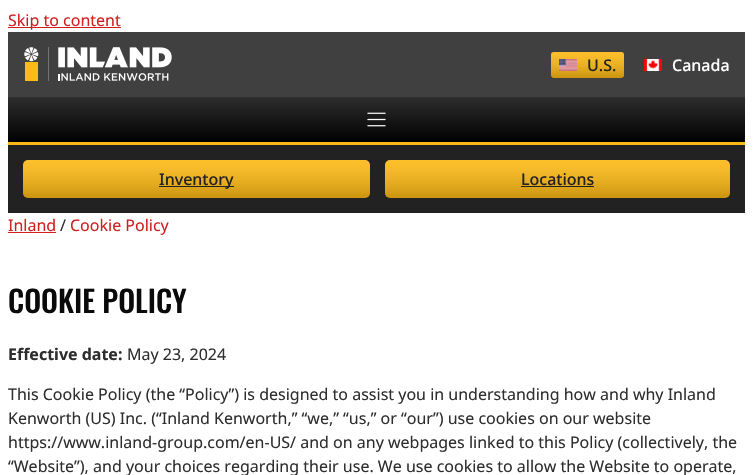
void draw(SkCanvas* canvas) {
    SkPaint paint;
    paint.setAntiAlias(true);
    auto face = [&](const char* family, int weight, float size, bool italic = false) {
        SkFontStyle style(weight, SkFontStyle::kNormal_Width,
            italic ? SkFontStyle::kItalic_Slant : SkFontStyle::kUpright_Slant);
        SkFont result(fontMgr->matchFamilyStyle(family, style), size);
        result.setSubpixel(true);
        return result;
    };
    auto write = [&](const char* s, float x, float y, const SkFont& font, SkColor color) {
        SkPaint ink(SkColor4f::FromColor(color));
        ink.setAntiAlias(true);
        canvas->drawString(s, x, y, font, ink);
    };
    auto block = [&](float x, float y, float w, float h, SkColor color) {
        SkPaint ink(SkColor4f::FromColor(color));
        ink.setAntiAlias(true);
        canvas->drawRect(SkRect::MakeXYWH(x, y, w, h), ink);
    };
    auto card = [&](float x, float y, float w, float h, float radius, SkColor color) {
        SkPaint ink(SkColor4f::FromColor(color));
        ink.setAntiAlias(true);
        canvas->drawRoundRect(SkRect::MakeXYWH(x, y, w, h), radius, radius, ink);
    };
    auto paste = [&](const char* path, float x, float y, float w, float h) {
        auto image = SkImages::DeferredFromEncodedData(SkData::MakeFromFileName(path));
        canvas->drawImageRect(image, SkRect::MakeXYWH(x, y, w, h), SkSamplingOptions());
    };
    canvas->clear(SK_ColorWHITE);
    block(8, 27, 113, 1, SkColorSetRGB(209, 31, 31));
    auto kFont1 = face("Noto Sans", 400, 16);
    write("Skip to content", 8, 26, kFont1, SkColorSetRGB(209, 31, 31));
    block(8, 32, 737, 65, SkColorSetRGB(64, 64, 64));
    paste("pic1.png", 24, 47, 148, 34);
    card(551, 52, 73, 26, 3, SkColorSetRGB(253, 185, 19));
    {
        const SkColor colors[] = {SkColorSetARGB(26, 255, 255, 255), SkColorSetARGB(51, 0, 0, 0)};
        const float stops[] = {0, 1};
        const SkPoint ends[] = {{588, 52}, {588, 78}};
        paint.setShader(SkGradientShader::MakeLinear(ends, colors, stops, 2, SkTileMode::kClamp));
        paint.setAlpha(255);
    }
    canvas->drawRect(SkRect::MakeXYWH(551, 52, 73, 26), paint);
    paste("pic2.png", 559, 59, 18, 12);
    auto kFont2 = face("Noto Sans", 500, 16);
    write("U.S.", 587, 71, kFont2, SkColorSetRGB(34, 34, 34));
    paste("pic3.png", 644, 59, 18, 12);
    write("Canada", 672, 71, kFont2, SK_ColorWHITE);
    {
        const SkColor colors[] = {SkColorSetRGB(46, 46, 46), SK_ColorBLACK};
        const float stops[] = {0, 1};
        const SkPoint ends[] = {{377, 97}, {377, 142}};
        paint.setShader(SkGradientShader::MakeLinear(ends, colors, stops, 2, SkTileMode::kClamp));
        paint.setAlpha(255);
    }
    canvas->drawRect(SkRect::MakeXYWH(8, 97, 737, 45), paint);
    block(8, 142, 737, 3, SkColorSetRGB(253, 185, 19));
    paste("pic4.png", 367, 112, 19, 15);
    block(8, 145, 737, 68, SkColorSetRGB(34, 34, 34));
    card(23, 160, 347, 38, 5, SkColorSetRGB(253, 185, 19));
    {
        const SkColor colors[] = {SkColorSetARGB(26, 255, 255, 255), SkColorSetARGB(51, 0, 0, 0)};
        const float stops[] = {0, 1};
        const SkPoint ends[] = {{197, 160}, {197, 198}};
        paint.setShader(SkGradientShader::MakeLinear(ends, colors, stops, 2, SkTileMode::kClamp));
        paint.setAlpha(255);
    }
    canvas->drawRoundRect(SkRect::MakeXYWH(23, 160, 347, 38), 5, 5, paint);
    block(159, 186, 75, 1, SkColorSetRGB(34, 34, 34));
    write("Inventory", 159, 185, kFont2, SkColorSetRGB(34, 34, 34));
    card(385, 160, 345, 38, 5, SkColorSetRGB(253, 185, 19));
    {
        const SkColor colors[] = {SkColorSetARGB(26, 255, 255, 255), SkColorSetARGB(51, 0, 0, 0)};
        const float stops[] = {0, 1};
        const SkPoint ends[] = {{558, 160}, {558, 198}};
        paint.setShader(SkGradientShader::MakeLinear(ends, colors, stops, 2, SkTileMode::kClamp));
        paint.setAlpha(255);
    }
    canvas->drawRoundRect(SkRect::MakeXYWH(385, 160, 345, 38), 5, 5, paint);
    write("Locations", 521, 185, kFont2, SkColorSetRGB(34, 34, 34));
    block(521, 186, 73, 1, SkColorSetRGB(34, 34, 34));
    write("Inland", 8, 231, kFont1, SkColorSetRGB(209, 31, 31));
    block(8, 232, 48, 1, SkColorSetRGB(209, 31, 31));
    write("/", 60, 231, kFont1, SkColorSetRGB(46, 46, 46));
    write("Cookie Policy", 70, 231, kFont1, SkColorSetRGB(209, 31, 31));
    auto kFont3 = face("Oswald", 500, 30);
    write("COOKIE POLICY", 8, 313, kFont3, SkColorSetRGB(10, 10, 10));
    auto kFont4 = face("Noto Sans", 700, 16);
    write("Effective date:", 8, 360, kFont4, SkColorSetRGB(46, 46, 46));
    write("May 23, 2024", 127, 360, kFont1, SkColorSetRGB(46, 46, 46));
    write("This Cookie Policy (the “Policy”) is designed to assist you in understanding how and why Inland", 8, 400, kFont1, SkColorSetRGB(46, 46, 46));
    write("Kenworth (US) Inc. (“Inland Kenworth,” “we,” “us,” or “our”) use cookies on our website", 8, 424, kFont1, SkColorSetRGB(46, 46, 46));
    write("https://www.inland-group.com/en-US/ and on any webpages linked to this Policy (collectively, the", 8, 448, kFont1, SkColorSetRGB(46, 46, 46));
    write("“Website”), and your choices regarding their use. We use cookies to allow the Website to operate,", 8, 472, kFont1, SkColorSetRGB(46, 46, 46));
}
